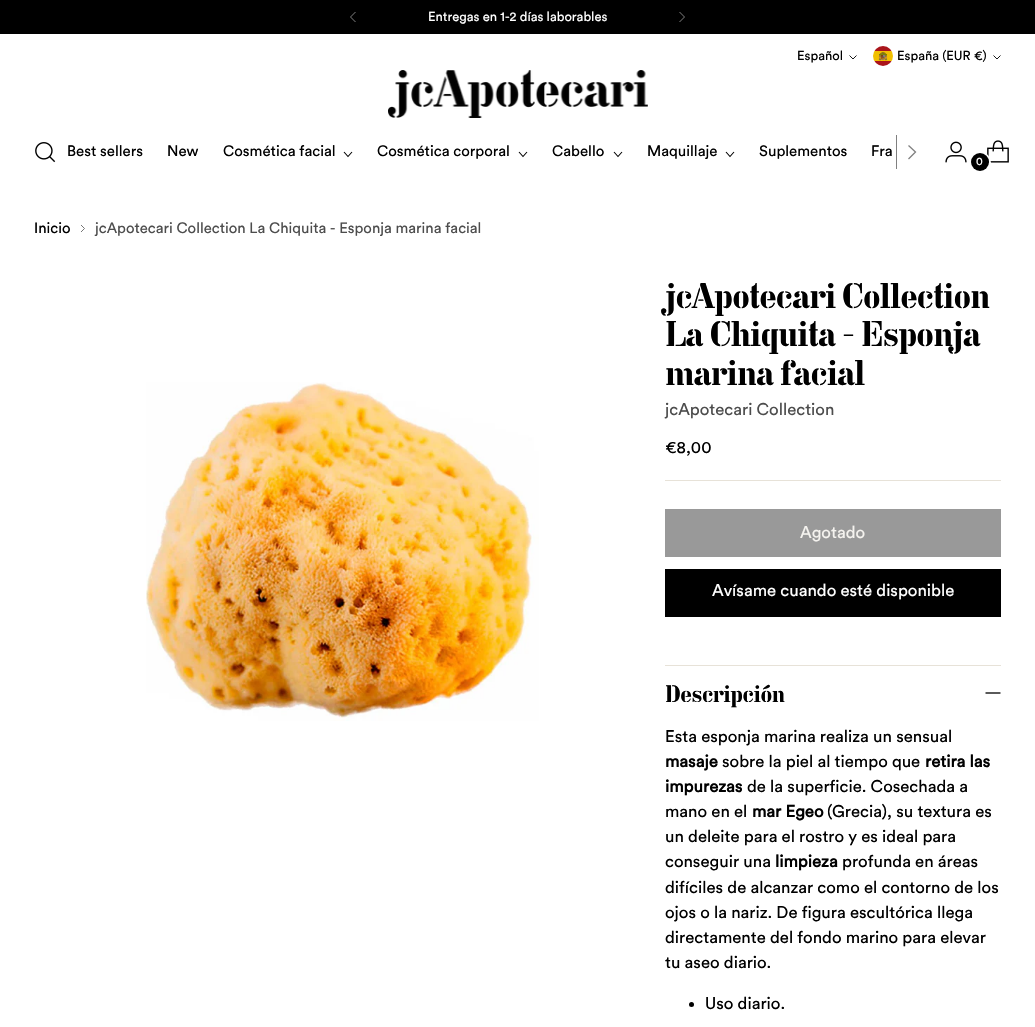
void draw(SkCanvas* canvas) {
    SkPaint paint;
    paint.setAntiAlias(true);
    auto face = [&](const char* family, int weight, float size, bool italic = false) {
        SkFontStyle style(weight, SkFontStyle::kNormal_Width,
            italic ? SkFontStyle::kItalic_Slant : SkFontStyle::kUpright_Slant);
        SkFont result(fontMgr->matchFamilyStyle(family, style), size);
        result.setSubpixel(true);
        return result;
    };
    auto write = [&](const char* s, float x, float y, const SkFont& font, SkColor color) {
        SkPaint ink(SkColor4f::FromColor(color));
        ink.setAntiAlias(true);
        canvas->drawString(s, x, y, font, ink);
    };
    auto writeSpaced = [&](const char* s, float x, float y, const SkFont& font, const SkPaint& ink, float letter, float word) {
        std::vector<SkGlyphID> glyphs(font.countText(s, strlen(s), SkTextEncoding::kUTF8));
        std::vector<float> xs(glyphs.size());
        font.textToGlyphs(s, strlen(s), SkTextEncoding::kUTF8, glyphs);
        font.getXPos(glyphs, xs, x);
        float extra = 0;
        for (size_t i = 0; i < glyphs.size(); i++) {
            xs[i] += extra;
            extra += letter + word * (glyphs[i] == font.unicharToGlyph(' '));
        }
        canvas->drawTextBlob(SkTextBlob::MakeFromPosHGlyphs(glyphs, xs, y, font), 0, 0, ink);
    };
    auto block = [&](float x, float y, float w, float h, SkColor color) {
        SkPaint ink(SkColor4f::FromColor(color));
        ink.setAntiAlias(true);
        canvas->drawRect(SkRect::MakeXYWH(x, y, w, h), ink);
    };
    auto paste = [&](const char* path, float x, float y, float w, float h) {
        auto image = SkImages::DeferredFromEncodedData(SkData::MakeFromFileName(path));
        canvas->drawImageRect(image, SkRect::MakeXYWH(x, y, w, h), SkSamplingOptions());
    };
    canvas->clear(SK_ColorWHITE);
    block(0, 0, 1035, 34, SK_ColorBLACK);
    paint.setStyle(SkPaint::kStroke_Style);
    paint.setStrokeWidth(1);
    paint.setColor(SkColorSetRGB(128, 128, 128));
    canvas->drawPath(SkPathBuilder().moveTo(355.5f, 12).lineTo(350.5f, 17).lineTo(355.5f, 22).detach(), paint);
    canvas->drawPath(SkPathBuilder().moveTo(679.5f, 22).lineTo(684.5f, 17).lineTo(679.5f, 12).detach(), paint);
    auto kFont1 = face("Circular", 400, 13);
    write("Entregas en 1-2 días laborables", 428, 21, kFont1, SK_ColorWHITE);
    write("Español", 797, 60, kFont1, SK_ColorBLACK);
    paint.setStrokeWidth(0.9f);
    paint.setColor(SK_ColorBLACK);
    canvas->drawPath(SkPathBuilder().moveTo(849.5f, 55.5f).lineTo(853, 59).lineTo(856.5f, 55.5f).detach(), paint);
    paste("pic1.png", 873, 46, 20, 20);
    write("España (EUR €)", 897, 60, kFont1, SK_ColorBLACK);
    canvas->drawPath(SkPathBuilder().moveTo(993.5f, 55.5f).lineTo(997, 59).lineTo(1000.5f, 55.5f).detach(), paint);
    paste("pic2.png", 388, 70, 260, 48);
    paste("pic3.png", 35, 142, 21, 21);
    auto kFont2 = face("Circular", 400, 15);
    write("Best sellers", 67, 156, kFont2, SK_ColorBLACK);
    write("New", 167, 156, kFont2, SK_ColorBLACK);
    write("Cosmética facial", 223, 156, kFont2, SK_ColorBLACK);
    paint.setStrokeWidth(1.1f);
    canvas->drawPath(SkPathBuilder().moveTo(344, 152).lineTo(348, 156.5f).lineTo(352, 152).detach(), paint);
    write("Cosmética corporal", 377, 156, kFont2, SK_ColorBLACK);
    canvas->drawPath(SkPathBuilder().moveTo(519, 152).lineTo(523, 156.5f).lineTo(527, 152).detach(), paint);
    write("Cabello", 552, 156, kFont2, SK_ColorBLACK);
    canvas->drawPath(SkPathBuilder().moveTo(614, 152).lineTo(618, 156.5f).lineTo(622, 152).detach(), paint);
    write("Maquillaje", 647, 156, kFont2, SK_ColorBLACK);
    canvas->drawPath(SkPathBuilder().moveTo(726, 152).lineTo(730, 156.5f).lineTo(734, 152).detach(), paint);
    write("Suplementos", 759, 156, kFont2, SK_ColorBLACK);
    write("Fra", 871, 156, kFont2, SK_ColorBLACK);
    block(896, 135, 1, 34, SkColorSetRGB(128, 128, 128));
    paint.setStrokeWidth(1.3f);
    paint.setColor(SkColorSetRGB(128, 128, 128));
    canvas->drawPath(SkPathBuilder().moveTo(908.5f, 159).lineTo(915.5f, 152).lineTo(908.5f, 145.5f).detach(), paint);
    paste("pic4.png", 945, 141, 22, 22);
    paste("pic5.png", 987, 140, 22, 23);
    paint.setStrokeWidth(2);
    paint.setColor(SK_ColorWHITE);
    canvas->drawCircle(980.5f, 162.5f, 9.5f, paint);
    paint.setStyle(SkPaint::kFill_Style);
    paint.setColor(SK_ColorBLACK);
    canvas->drawCircle(980, 162, 9, paint);
    auto kFont3 = face("Circular", 400, 11);
    write("0", 976, 165, kFont3, SK_ColorWHITE);
    auto kFont4 = face("Circular", 400, 14.9f);
    write("Inicio", 34, 233, kFont4, SK_ColorBLACK);
    paint.setStyle(SkPaint::kStroke_Style);
    paint.setStrokeWidth(0.9f);
    paint.setColor(SkColorSetRGB(102, 102, 102));
    canvas->drawPath(SkPathBuilder().moveTo(81, 232).lineTo(84.5f, 228.5f).lineTo(81, 225).detach(), paint);
    write("jcApotecari Collection La Chiquita - Esponja marina facial", 95, 233, kFont4, SkColorSetRGB(77, 77, 77));
    paste("pic6.png", 146, 382, 393, 339);
    block(665, 480, 336, 1, SkColorSetRGB(231, 226, 216));
    auto kFont5 = face("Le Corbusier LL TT", 400, 35.25f);
    paint.setStyle(SkPaint::kFill_Style);
    paint.setColor(SK_ColorBLACK);
    writeSpaced("jcApotecari Collection", 665, 308, kFont5, paint, -0.9f, 0);
    writeSpaced("La Chiquita - Esponja", 665, 346, kFont5, paint, -0.9f, 0);
    writeSpaced("marina facial", 665, 385, kFont5, paint, -0.9f, 0);
    auto kFont6 = face("Circular", 400, 16.75f);
    write("jcApotecari Collection", 665, 415, kFont6, SkColorSetRGB(77, 77, 77));
    write("€8,00", 665, 453, kFont6, SK_ColorBLACK);
    canvas->save();
    canvas->clipRect(SkRect::MakeXYWH(665, 509, 336, 48));
    paint.setColor(SkColorSetRGB(153, 153, 153));
    canvas->drawPath(SkPathBuilder().moveTo(601, 509).lineTo(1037, 509).lineTo(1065, 557).lineTo(629, 557).close().detach(), paint);
    canvas->restore();
    write("Agotado", 800, 538, kFont6, SkColorSetRGB(245, 243, 239));
    block(665, 569, 336, 48, SK_ColorBLACK);
    write("Avísame cuando esté disponible", 712, 596, kFont6, SK_ColorWHITE);
    block(665, 665, 336, 1, SkColorSetRGB(231, 226, 216));
    auto kFont7 = face("Le Corbusier LL TT", 400, 23.5f);
    paint.setColor(SK_ColorBLACK);
    writeSpaced("Descripción", 665, 702, kFont7, paint, -0.5f, 0);
    paint.setStyle(SkPaint::kStroke_Style);
    paint.setStrokeWidth(1.3f);
    canvas->drawPath(SkPathBuilder().moveTo(985.5f, 693).lineTo(1000.5f, 693).detach(), paint);
    write("Esta esponja marina realiza un sensual", 665, 742, kFont6, SK_ColorBLACK);
    auto kFont8 = face("Circular", 700, 16.75f);
    write("masaje", 665, 767, kFont8, SK_ColorBLACK);
    write("sobre la piel al tiempo que", 722, 767, kFont6, SK_ColorBLACK);
    write("retira las", 925, 767, kFont8, SK_ColorBLACK);
    write("impurezas", 665, 792, kFont8, SK_ColorBLACK);
    write("de la superficie. Cosechada a", 747, 792, kFont6, SK_ColorBLACK);
    write("mano en el", 665, 817, kFont6, SK_ColorBLACK);
    write("mar Egeo", 752, 817, kFont8, SK_ColorBLACK);
    write("(Grecia), su textura es", 827, 817, kFont6, SK_ColorBLACK);
    write("un deleite para el rostro y es ideal para", 665, 842, kFont6, SK_ColorBLACK);
    write("conseguir una", 665, 867, kFont6, SK_ColorBLACK);
    write("limpieza", 775, 867, kFont8, SK_ColorBLACK);
    write("profunda en áreas", 842, 867, kFont6, SK_ColorBLACK);
    write("difíciles de alcanzar como el contorno de los", 665, 893, kFont6, SK_ColorBLACK);
    write("ojos o la nariz. De figura escultórica llega", 665, 918, kFont6, SK_ColorBLACK);
    write("directamente del fondo marino para elevar", 665, 943, kFont6, SK_ColorBLACK);
    write("tu aseo diario.", 665, 968, kFont6, SK_ColorBLACK);
    paint.setStyle(SkPaint::kFill_Style);
    canvas->drawCircle(691.5f, 1004.5f, 2.5f, paint);
    write("Uso diario.", 705, 1009, kFont6, SK_ColorBLACK);
}
